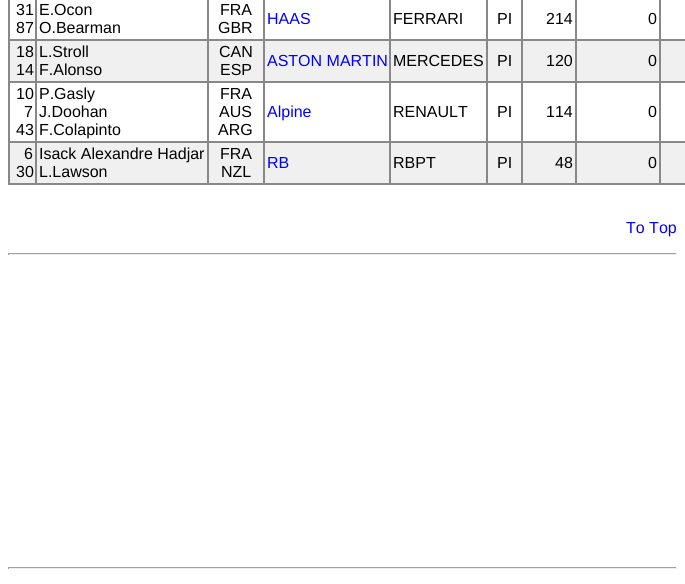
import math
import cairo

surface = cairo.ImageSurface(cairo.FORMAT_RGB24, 685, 584)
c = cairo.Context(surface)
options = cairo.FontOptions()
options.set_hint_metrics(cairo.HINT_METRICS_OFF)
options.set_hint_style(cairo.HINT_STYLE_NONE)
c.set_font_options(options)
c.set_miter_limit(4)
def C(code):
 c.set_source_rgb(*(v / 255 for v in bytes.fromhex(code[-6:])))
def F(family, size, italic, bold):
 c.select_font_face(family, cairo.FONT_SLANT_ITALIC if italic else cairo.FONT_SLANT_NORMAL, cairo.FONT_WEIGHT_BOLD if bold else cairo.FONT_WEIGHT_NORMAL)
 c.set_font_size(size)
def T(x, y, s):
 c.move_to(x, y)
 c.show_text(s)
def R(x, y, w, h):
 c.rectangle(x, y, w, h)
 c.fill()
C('ffffff')
c.paint()
c.rectangle(8.5,-.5,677,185)
C('888888')
c.set_line_width(1)
c.stroke()
c.rectangle(9.5,-.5,26,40)
c.stroke()
F('Liberation Sans',16,0,0)
C('000000')
T(16,15,'31')
T(16,33,'87')
c.rectangle(36.5,-.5,171,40)
C('888888')
c.stroke()
C('000000')
T(39,15,'E.Ocon')
T(39,33,'O.Bearman')
c.rectangle(208.5,-.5,55,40)
C('888888')
c.stroke()
C('000000')
T(220,15,'FRA')
T(218,33,'GBR')
c.rectangle(264.5,-.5,125,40)
C('888888')
c.stroke()
C('0000ff')
T(267,24,'HAAS')
c.rectangle(390.5,-.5,96,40)
C('888888')
c.stroke()
C('000000')
T(393,24,'FERRARI')
c.rectangle(487.5,-.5,34,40)
C('888888')
c.stroke()
C('000000')
T(497,24,'PI')
c.rectangle(522.5,-.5,53,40)
C('888888')
c.stroke()
C('000000')
T(546,24,'214')
c.rectangle(576.5,-.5,83,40)
C('888888')
c.stroke()
C('000000')
T(648,24,'0')
c.rectangle(660.5,-.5,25,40)
C('888888')
c.stroke()
C('f0f0f0')
R(10,41,675,40)
c.rectangle(9.5,40.5,26,41)
C('888888')
c.stroke()
C('000000')
T(16,57,'18')
T(16,75,'14')
c.rectangle(36.5,40.5,171,41)
C('888888')
c.stroke()
C('000000')
T(39,57,'L.Stroll')
T(39,75,'F.Alonso')
c.rectangle(208.5,40.5,55,41)
C('888888')
c.stroke()
C('000000')
T(219,57,'CAN')
T(220,75,'ESP')
c.rectangle(264.5,40.5,125,41)
C('888888')
c.stroke()
C('0000ff')
T(267,66,'ASTON MARTIN')
c.rectangle(390.5,40.5,96,41)
C('888888')
c.stroke()
C('000000')
T(393,66,'MERCEDES')
c.rectangle(487.5,40.5,34,41)
C('888888')
c.stroke()
C('000000')
T(497,66,'PI')
c.rectangle(522.5,40.5,53,41)
C('888888')
c.stroke()
C('000000')
T(546,66,'120')
c.rectangle(576.5,40.5,83,41)
C('888888')
c.stroke()
C('000000')
T(648,66,'0')
c.rectangle(660.5,40.5,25,41)
C('888888')
c.stroke()
c.rectangle(9.5,82.5,26,59)
c.stroke()
C('000000')
T(16,99,'10')
T(24,117,'7')
T(16,135,'43')
c.rectangle(36.5,82.5,171,59)
C('888888')
c.stroke()
C('000000')
T(39,99,'P.Gasly')
T(39,117,'J.Doohan')
T(39,135,'F.Colapinto')
c.rectangle(208.5,82.5,55,59)
C('888888')
c.stroke()
C('000000')
T(220,99,'FRA')
T(219,117,'AUS')
T(218,135,'ARG')
c.rectangle(264.5,82.5,125,59)
C('888888')
c.stroke()
C('0000ff')
T(267,117,'Alpine')
c.rectangle(390.5,82.5,96,59)
C('888888')
c.stroke()
C('000000')
T(393,117,'RENAULT')
c.rectangle(487.5,82.5,34,59)
C('888888')
c.stroke()
C('000000')
T(497,117,'PI')
c.rectangle(522.5,82.5,53,59)
C('888888')
c.stroke()
C('000000')
T(546,117,'114')
c.rectangle(576.5,82.5,83,59)
C('888888')
c.stroke()
C('000000')
T(648,117,'0')
c.rectangle(660.5,82.5,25,59)
C('888888')
c.stroke()
C('f0f0f0')
R(10,143,675,40)
c.rectangle(9.5,142.5,26,41)
C('888888')
c.stroke()
C('000000')
T(24,159,'6')
T(16,177,'30')
c.rectangle(36.5,142.5,171,41)
C('888888')
c.stroke()
C('000000')
T(39,159,'Isack Alexandre Hadjar')
T(39,177,'L.Lawson')
c.rectangle(208.5,142.5,55,41)
C('888888')
c.stroke()
C('000000')
T(220,159,'FRA')
T(221,177,'NZL')
c.rectangle(264.5,142.5,125,41)
C('888888')
c.stroke()
C('0000ff')
T(267,168,'RB')
c.rectangle(390.5,142.5,96,41)
C('888888')
c.stroke()
C('000000')
T(393,168,'RBPT')
c.rectangle(487.5,142.5,34,41)
C('888888')
c.stroke()
C('000000')
T(497,168,'PI')
c.rectangle(522.5,142.5,53,41)
C('888888')
c.stroke()
C('000000')
T(555,168,'48')
c.rectangle(576.5,142.5,83,41)
C('888888')
c.stroke()
C('000000')
T(648,168,'0')
c.rectangle(660.5,142.5,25,41)
C('888888')
c.stroke()
C('0000ff')
T(626,233,'To Top')
C('9f9f9f')
R(8,253,669,1)
C('eeeeee')
R(676,253,1,2)
R(8,254,669,1)
C('9f9f9f')
R(8,253,1,2)
R(8,567,669,1)
C('eeeeee')
R(676,567,1,2)
R(8,568,669,1)
C('9f9f9f')
R(8,567,1,2)
surface.write_to_png('o.png')
